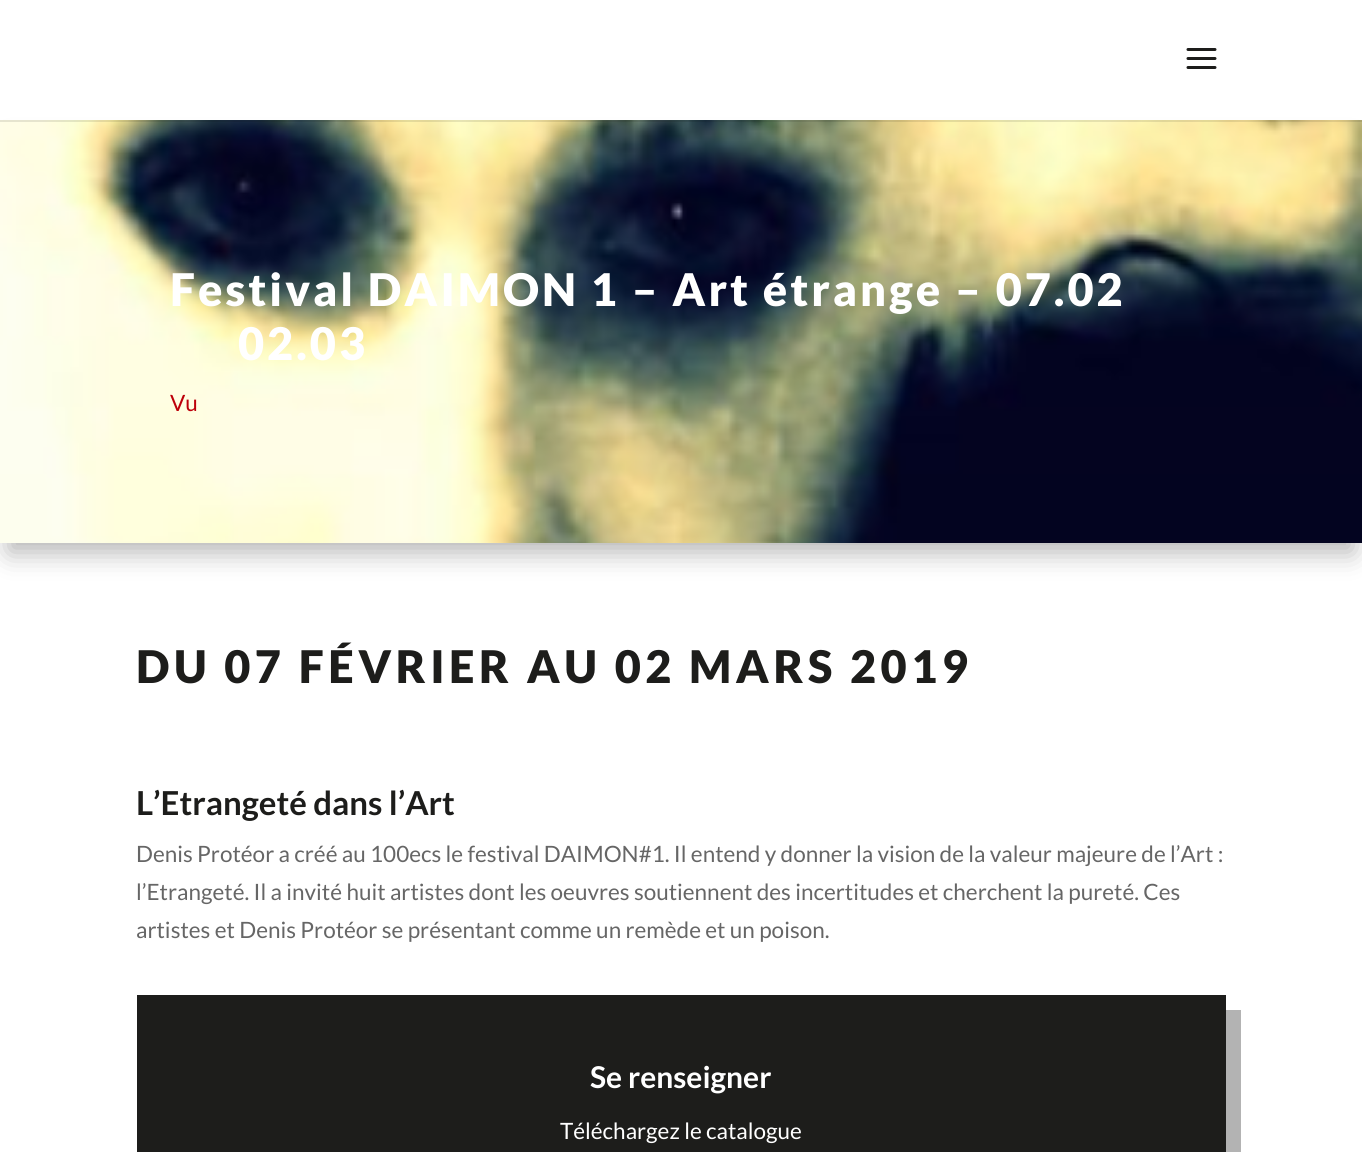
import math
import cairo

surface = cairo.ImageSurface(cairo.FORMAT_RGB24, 1362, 1152)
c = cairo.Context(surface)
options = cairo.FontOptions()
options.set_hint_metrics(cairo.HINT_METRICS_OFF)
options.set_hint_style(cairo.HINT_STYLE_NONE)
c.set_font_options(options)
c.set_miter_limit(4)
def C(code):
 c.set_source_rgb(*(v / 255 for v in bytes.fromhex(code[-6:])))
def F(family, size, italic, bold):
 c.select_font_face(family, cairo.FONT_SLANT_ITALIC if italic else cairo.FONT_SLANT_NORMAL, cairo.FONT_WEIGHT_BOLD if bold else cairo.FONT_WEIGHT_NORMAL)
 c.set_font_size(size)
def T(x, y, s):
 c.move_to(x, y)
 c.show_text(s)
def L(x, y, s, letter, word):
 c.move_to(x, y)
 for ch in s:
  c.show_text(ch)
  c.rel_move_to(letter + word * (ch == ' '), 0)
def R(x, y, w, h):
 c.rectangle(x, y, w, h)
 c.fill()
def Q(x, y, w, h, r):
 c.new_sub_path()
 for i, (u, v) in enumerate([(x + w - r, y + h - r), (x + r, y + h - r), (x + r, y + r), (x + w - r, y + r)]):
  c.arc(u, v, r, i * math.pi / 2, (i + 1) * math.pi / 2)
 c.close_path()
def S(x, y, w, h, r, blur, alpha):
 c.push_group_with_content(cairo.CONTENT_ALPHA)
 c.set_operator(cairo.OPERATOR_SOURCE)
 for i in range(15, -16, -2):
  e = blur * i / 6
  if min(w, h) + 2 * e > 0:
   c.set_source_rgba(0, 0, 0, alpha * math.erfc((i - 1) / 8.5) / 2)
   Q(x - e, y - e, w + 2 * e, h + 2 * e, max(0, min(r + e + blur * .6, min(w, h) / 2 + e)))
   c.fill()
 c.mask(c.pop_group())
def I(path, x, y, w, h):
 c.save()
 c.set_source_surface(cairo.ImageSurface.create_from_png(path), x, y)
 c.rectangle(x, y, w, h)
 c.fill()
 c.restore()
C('ffffff')
c.paint()
C('000000')
S(9,146,1344,406,0,13.5,.3)
I('2.png',0,120,1362,423)
c.set_source_rgba(0,0,0,0.1)
R(0,120,1362,2)
I('1.png',1186,48,31,21)
F('Lato Black',45,0,0)
C('ffffff')
L(170,306,'Festival DAIMON 1 – Art étrange – 07.02',3,0)
L(238,360,'02.03',3,0)
F('Lato',22.5,0,0)
C('bd000a')
T(170,411,'Vu')
F('Lato Black',45,0,0)
C('1d1d1b')
L(136,683,'DU 07 FÉVRIER AU 02 MARS 2019',4.5,0)
F('Lato',33,0,1)
T(136,815,'L’Etrangeté dans l’Art')
F('Lato',22.5,0,0)
C('666666')
T(136,862,'Denis Protéor a créé au 100ecs le festival DAIMON#1. Il entend y donner la vision de la valeur majeure de l’Art :')
T(136,900,'l’Etrangeté. Il a invité huit artistes dont les oeuvres soutiennent des incertitudes et cherchent la pureté. Ces')
T(136,938,'artistes et Denis Protéor se présentant comme un remède et un poison.')
C('b3b3b3')
c.new_path()
c.move_to(152,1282)
c.line_to(152,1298)
c.line_to(1241,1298)
c.line_to(1241,1010)
c.line_to(1226,1010)
c.line_to(1226,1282)
c.close_path()
c.fill()
C('1d1d1b')
R(137,995,1089,157)
F('Lato',30,0,1)
C('ffffff')
T(590,1088,'Se renseigner')
F('Lato',22.5,0,0)
T(560,1139,'Téléchargez le catalogue')
surface.write_to_png('o.png')
